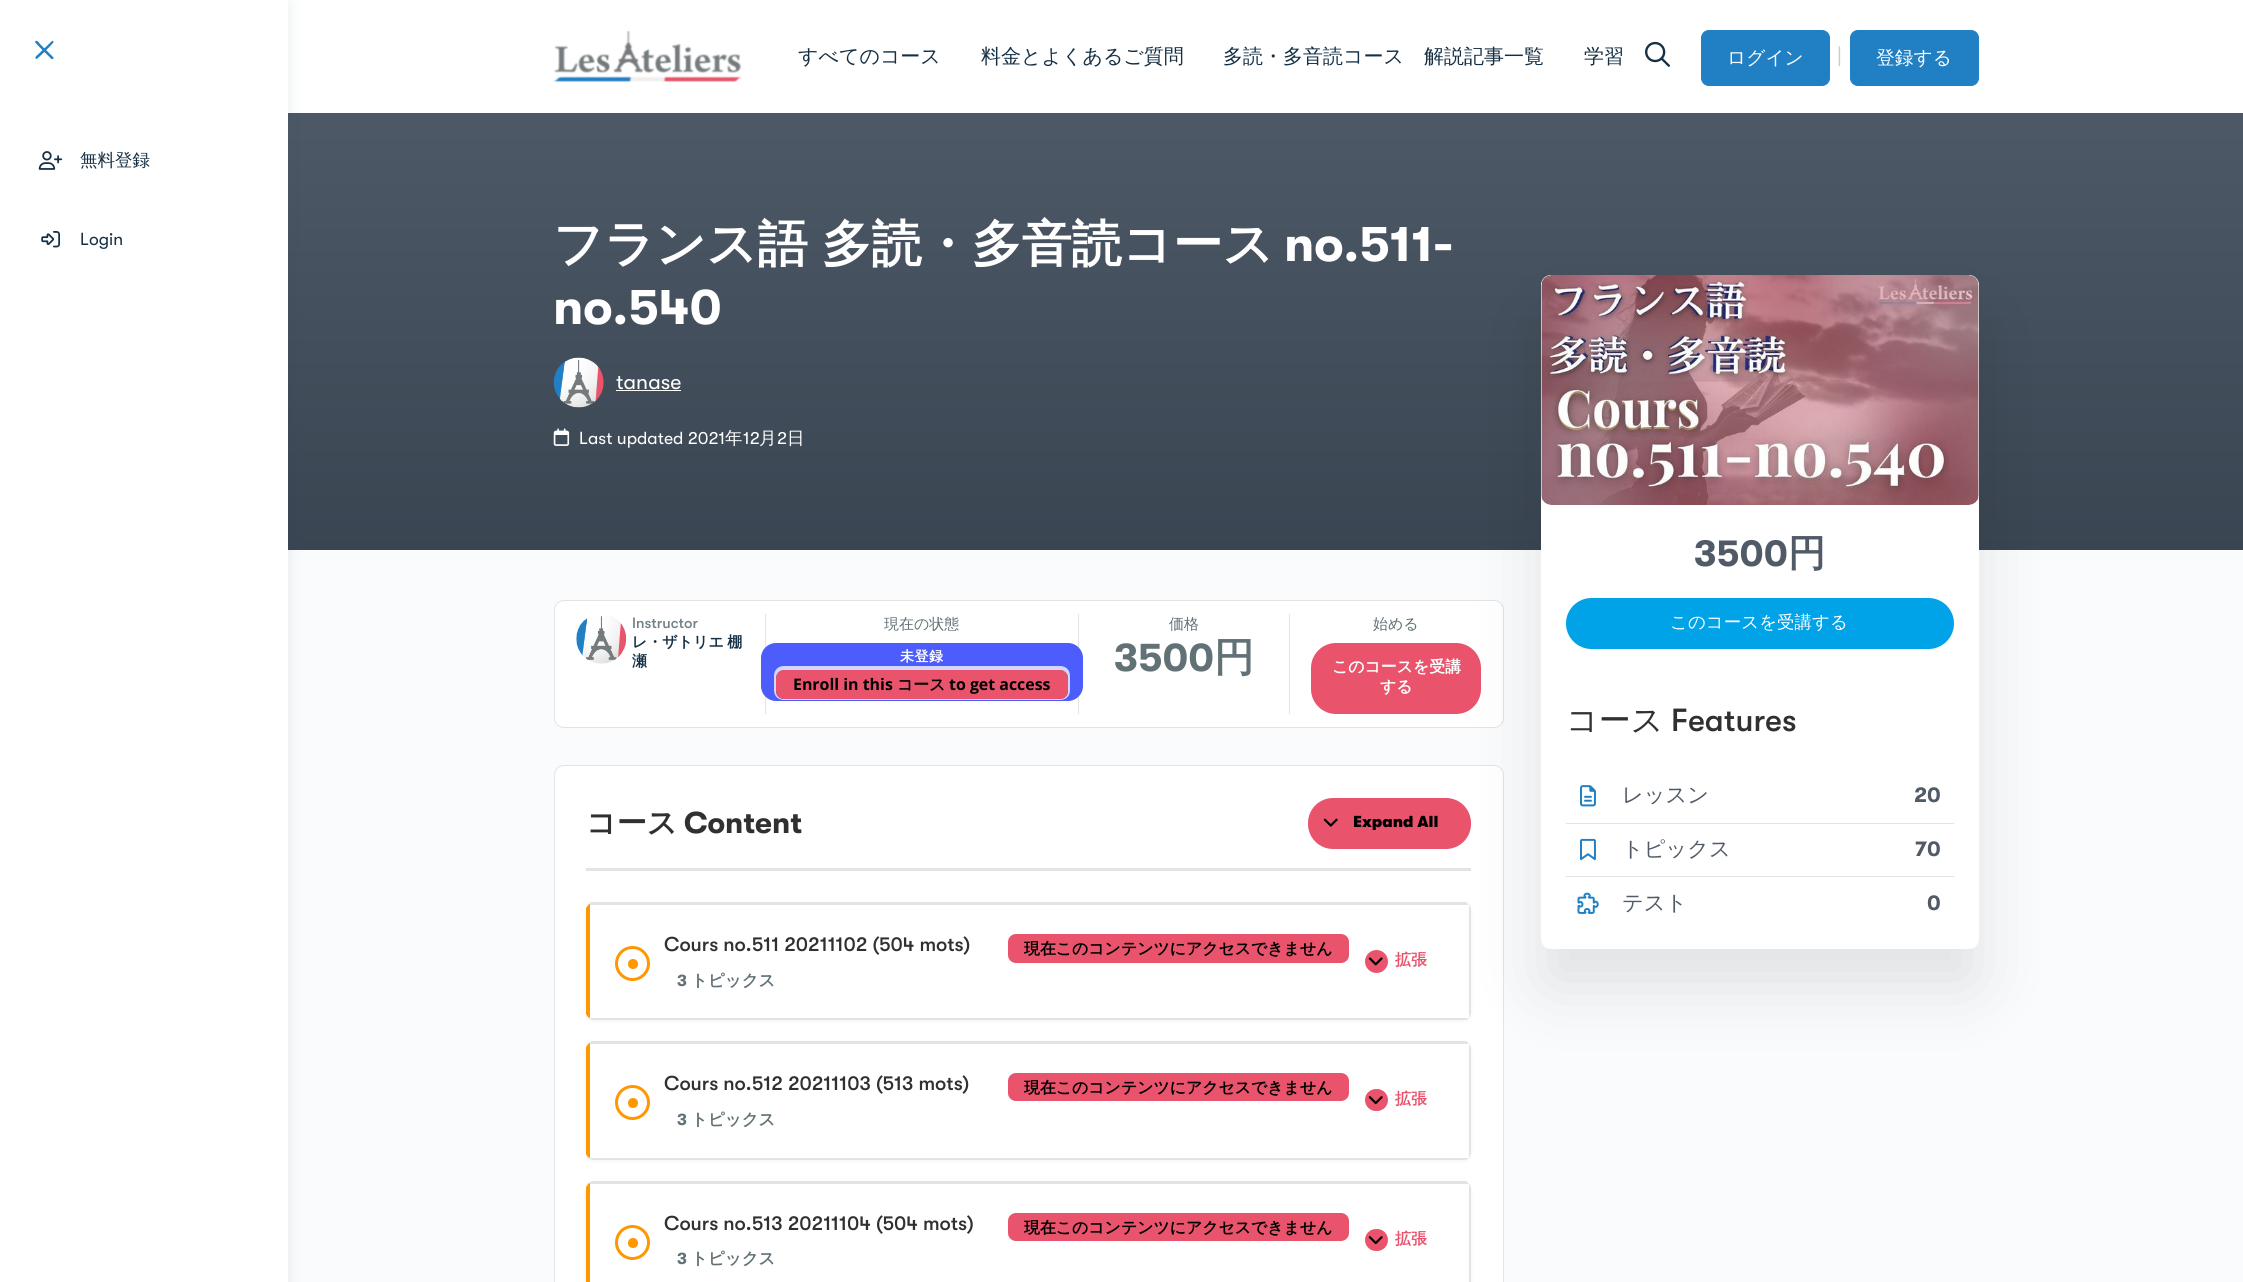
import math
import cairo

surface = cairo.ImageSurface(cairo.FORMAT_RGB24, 2243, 1282)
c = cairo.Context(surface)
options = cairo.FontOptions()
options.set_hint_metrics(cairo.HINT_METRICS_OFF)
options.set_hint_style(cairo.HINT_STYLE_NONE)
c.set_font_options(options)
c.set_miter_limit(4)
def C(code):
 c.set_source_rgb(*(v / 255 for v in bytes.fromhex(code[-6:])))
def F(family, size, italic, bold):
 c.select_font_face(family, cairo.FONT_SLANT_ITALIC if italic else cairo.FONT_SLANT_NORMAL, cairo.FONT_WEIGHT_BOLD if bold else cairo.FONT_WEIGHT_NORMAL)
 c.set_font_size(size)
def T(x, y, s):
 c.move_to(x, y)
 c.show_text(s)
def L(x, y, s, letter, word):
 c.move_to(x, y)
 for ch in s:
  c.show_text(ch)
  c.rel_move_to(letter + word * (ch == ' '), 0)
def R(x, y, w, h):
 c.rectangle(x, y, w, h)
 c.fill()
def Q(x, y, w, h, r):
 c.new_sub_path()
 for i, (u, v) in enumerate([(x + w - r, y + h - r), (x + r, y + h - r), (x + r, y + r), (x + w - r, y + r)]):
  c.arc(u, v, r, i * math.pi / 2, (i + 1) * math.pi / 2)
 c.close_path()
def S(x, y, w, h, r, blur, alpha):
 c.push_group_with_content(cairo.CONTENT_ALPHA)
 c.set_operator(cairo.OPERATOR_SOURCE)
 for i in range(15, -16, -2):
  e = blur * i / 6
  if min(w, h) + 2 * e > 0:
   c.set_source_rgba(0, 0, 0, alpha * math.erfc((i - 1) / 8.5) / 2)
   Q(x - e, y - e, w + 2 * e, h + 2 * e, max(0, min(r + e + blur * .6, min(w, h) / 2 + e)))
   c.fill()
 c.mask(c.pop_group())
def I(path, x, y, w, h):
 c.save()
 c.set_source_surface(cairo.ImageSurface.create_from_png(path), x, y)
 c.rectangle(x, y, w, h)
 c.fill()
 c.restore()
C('fafbfd')
c.paint()
gradient = cairo.LinearGradient(1266,112,1266,550)
gradient.add_color_stop_rgba(.04,0.298,0.345,0.396,1)
gradient.add_color_stop_rgba(1,0.227,0.271,0.322,1)
c.set_source(gradient)
R(288,113,1955,437)
c.set_source_rgba(0.255,0.278,0.424,0.1)
c.new_path()
c.move_to(288,112)
c.line_to(288,114)
c.line_to(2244,114)
c.line_to(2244,1)
c.line_to(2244,112)
c.close_path()
c.fill()
C('ffffff')
R(288,0,1955,113)
C('122b46')
S(0,4,288,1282,0,8,.1)
C('ffffff')
R(0,0,288,1282)
C('217fc4')
c.new_path()
c.move_to(53,43)
c.curve_to(51.5,45,37.5,59,36.5,59)
c.line_to(35.5,58.5)
c.curve_to(34.5,57,38,54.5,38,54.5)
c.line_to(52,41)
c.curve_to(52.5,40.5,53.5,41,53.5,42)
c.close_path()
c.fill()
c.new_path()
c.move_to(51.5,59)
c.curve_to(49.5,57,35,43,35,42)
c.line_to(35.5,41)
c.curve_to(37.5,40,39.5,43.5,40,44)
c.line_to(53.5,57.5)
c.curve_to(54,58.5,53,59,52.5,59)
c.close_path()
c.fill()
I('1.png',38,151,25,19)
F('WenQuanYi Zen Hei Medium',17.5,0,0)
C('153045')
T(80,166,'無料登録')
I('2.png',41,231,19,17)
F('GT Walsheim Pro',17.5,0,0)
T(80,245,'Login')
I('3.png',553,30,189,52)
F('WenQuanYi Zen Hei Medium',20,0,0)
T(798,63,'すべてのコース')
T(981,63,'料金とよくあるご質問')
T(1223,63,'多読・多音読コース　解説記事一覧')
T(1584,63,'学習')
I('4.png',1645,41,25,26)
C('217fc4')
Q(1701.5,30.5,128,55,7.5)
c.fill_preserve()
c.set_line_width(1)
c.stroke()
F('WenQuanYi Zen Hei Medium',18.75,0,0)
C('ffffff')
T(1727,64,'ログイン')
F('GT Walsheim Pro',21.25,0,0)
C('cccccc')
T(1837,62,'|')
C('217fc4')
Q(1850.5,30.5,128,55,7.5)
c.fill_preserve()
c.stroke()
F('WenQuanYi Zen Hei Medium',18.75,0,0)
C('ffffff')
T(1876,64,'登録する')
F('WenQuanYi Zen Hei',50,0,1)
L(553,261,'フランス語 多読・多音読コース',0,-1)
F('GT Walsheim Pro',50,0,1)
T(1284,261,'no.511-')
T(553,324,'no.540')
I('5.png',553,357,51,51)
F('GT Walsheim Pro',21.25,0,0)
T(616,389,'tanase')
R(616,390,65,1)
I('6.png',553,428,17,18)
F('GT Walsheim Pro',17.5,0,0)
T(579,444,'Last updated 2021')
F('WenQuanYi Zen Hei Medium',17.5,0,0)
T(725,444,'年')
F('GT Walsheim Pro',17.5,0,0)
T(743,444,'12')
F('WenQuanYi Zen Hei Medium',17.5,0,0)
T(759,444,'月')
F('GT Walsheim Pro',17.5,0,0)
T(777,444,'2')
F('WenQuanYi Zen Hei Medium',17.5,0,0)
T(787,444,'日')
Q(554.5,600.5,949,127,9.5)
c.fill_preserve()
C('e3e3e3')
c.stroke()
R(765,614,1,100)
I('7.png',576,616,51,48)
F('GT Walsheim Pro Medium',15,0,0)
C('728188')
T(632,628,'Instructor')
F('WenQuanYi Zen Hei',15,0,1)
C('153045')
L(632,647,'レ・ザトリエ 棚',0,-1)
T(632,666,'瀬')
C('e3e3e3')
R(1078,614,1,100)
F('WenQuanYi Zen Hei Medium',15,0,0)
C('617175')
T(884,629,'現在の状態')
C('4d5dfb')
Q(761,643,322,58,15)
c.fill()
F('WenQuanYi Zen Hei',14,0,1)
C('ffffff')
L(900,661,'未登録',.5,0)
C('d3d7fe')
c.set_fill_rule(cairo.FILL_RULE_EVEN_ODD)
c.new_path()
c.move_to(784,666)
c.curve_to(778,666,774,670,774,676)
c.line_to(774,690)
c.curve_to(774,696,778,700,784,700)
c.line_to(1060,700)
c.curve_to(1066,700,1070,696,1070,690)
c.line_to(1070,676)
c.curve_to(1070,670,1066,666,1060,666)
c.close_path()
c.move_to(784,670)
c.curve_to(780,670,776,674,776,678)
c.line_to(776,691)
c.curve_to(776,696,780,699,784,699)
c.line_to(1060,699)
c.curve_to(1064,699,1068,696,1068,691)
c.line_to(1068,678)
c.curve_to(1068,674,1064,670,1060,670)
c.close_path()
c.fill()
C('e9536c')
Q(776,670,292,29,8)
c.fill()
F('Open Sans',15.9,0,1)
C('000000')
T(793,690,'Enroll in this')
F('WenQuanYi Zen Hei',15.9,0,1)
T(897,690,'コース')
F('Open Sans',15.9,0,1)
T(949,690,'to get access')
C('e3e3e3')
R(1289,614,1,100)
F('WenQuanYi Zen Hei Medium',15,0,0)
C('617175')
T(1169,629,'価格')
F('GT Walsheim Pro',40,0,1)
T(1114,671,'3500')
F('WenQuanYi Zen Hei',40,0,1)
T(1214,671,'円')
F('WenQuanYi Zen Hei Medium',15,0,0)
T(1373,629,'始める')
C('e9536c')
Q(1311,643,170,71,25)
c.fill()
F('WenQuanYi Zen Hei',15.9,0,1)
C('ffffff')
T(1332,672,'このコースを受講')
T(1380,692,'する')
Q(554.5,765.5,949,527,9.5)
c.fill_preserve()
C('e3e3e3')
c.stroke()
R(586,868,885,3)
F('WenQuanYi Zen Hei',30,0,1)
C('303030')
T(586,833,'コース')
F('GT Walsheim Pro',30,0,1)
T(684,833,'Content')
C('e9536c')
Q(1308,798,163,51,25)
c.fill()
I('8.png',1323,818,15,9)
F('GT Walsheim Pro Black',15.9,0,0)
C('000000')
T(1353,827,'Expand All')
C('000000')
S(586,904,885,117,8,2,.06)
C('e3e3e3')
c.set_fill_rule(cairo.FILL_RULE_WINDING)
c.new_path()
c.move_to(594,905)
c.line_to(592,906)
c.line_to(589,904)
c.line_to(591,902)
c.line_to(1466,902)
c.line_to(1469,905)
c.line_to(1467,906)
c.curve_to(1467,905,1465,905,1464,905)
c.close_path()
c.fill()
c.new_path()
c.move_to(1469,905)
c.curve_to(1470,906,1471,908,1471,910)
c.line_to(1471,1012)
c.curve_to(1471,1014,1470,1016,1469,1018)
c.line_to(1468,1016)
c.line_to(1469,1013)
c.line_to(1469,909)
c.line_to(1467,906)
c.close_path()
c.fill()
c.new_path()
c.move_to(594,1020)
c.line_to(1464,1020)
c.curve_to(1466,1020,1468,1019,1469,1018)
c.line_to(1468,1016)
c.curve_to(1467,1017,1465,1018,1464,1018)
c.line_to(594,1018)
c.line_to(592,1016)
c.line_to(589,1018)
c.curve_to(590,1019,592,1020,594,1020)
c.close_path()
c.fill()
C('ff9800')
c.new_path()
c.move_to(586,908)
c.line_to(589,904)
c.line_to(592,906)
c.curve_to(591,907,590,908,590,910)
c.line_to(590,1012)
c.curve_to(590,1014,591,1015,592,1016)
c.line_to(589,1018)
c.curve_to(588,1017,587,1016,586,1014)
c.close_path()
c.fill()
C('ffffff')
R(590,905,879,113)
c.arc(632.5,963.5,16,0,2 * math.pi)
C('ff9800')
c.set_line_width(3)
c.stroke()
c.arc(633,964,5,0,2 * math.pi)
c.fill()
F('GT Walsheim Pro Medium',20,0,0)
C('303030')
T(664,951,'Cours no.511 20211102 (504 mots)')
F('GT Walsheim Pro',16.5,0,1)
C('617175')
T(677,986,'3')
F('WenQuanYi Zen Hei',16.5,0,1)
T(691,986,'トピックス')
C('e9536c')
Q(1008,934,341,29,8)
c.fill()
F('WenQuanYi Zen Hei',15.9,0,1)
C('000000')
T(1024,954,'現在このコンテンツにアクセスできません')
C('e9536c')
c.new_path()
c.arc(1376.5,961.5,11.5,0,2 * math.pi)
c.fill()
I('9.png',1368,957,15,9)
T(1395,965,'拡張')
C('000000')
S(586,1043,885,118,8,2,.06)
C('e3e3e3')
c.new_path()
c.move_to(594,1044)
c.line_to(592,1045)
c.line_to(589,1043)
c.line_to(592,1041)
c.line_to(1466,1041)
c.line_to(1469,1044)
c.line_to(1467,1045)
c.line_to(1464,1044)
c.close_path()
c.fill()
c.new_path()
c.move_to(1469,1044)
c.curve_to(1470,1045,1471,1047,1471,1049)
c.line_to(1471,1152)
c.curve_to(1471,1154,1470,1156,1469,1158)
c.line_to(1468,1156)
c.curve_to(1468,1155,1469,1154,1469,1152)
c.line_to(1469,1049)
c.curve_to(1469,1047,1468,1046,1467,1045)
c.close_path()
c.fill()
c.new_path()
c.move_to(594,1160)
c.line_to(1464,1160)
c.curve_to(1466,1160,1468,1159,1469,1158)
c.line_to(1468,1156)
c.curve_to(1467,1157,1465,1158,1464,1158)
c.line_to(594,1158)
c.line_to(592,1156)
c.line_to(589,1158)
c.curve_to(590,1159,592,1160,594,1160)
c.close_path()
c.fill()
C('ff9800')
c.new_path()
c.move_to(586,1047)
c.curve_to(587,1046,588,1044,589,1043)
c.line_to(592,1045)
c.curve_to(591,1046,590,1047,590,1049)
c.line_to(590,1152)
c.curve_to(590,1154,591,1155,592,1156)
c.line_to(589,1158)
c.curve_to(588,1157,587,1156,586,1154)
c.close_path()
c.fill()
C('ffffff')
R(590,1044,879,114)
c.arc(632.5,1102.5,16,0,2 * math.pi)
C('ff9800')
c.stroke()
c.arc(633,1103,5,0,2 * math.pi)
c.fill()
F('GT Walsheim Pro Medium',20,0,0)
C('303030')
T(664,1090,'Cours no.512 20211103 (513 mots)')
F('GT Walsheim Pro',16.5,0,1)
C('617175')
T(677,1125,'3')
F('WenQuanYi Zen Hei',16.5,0,1)
T(691,1125,'トピックス')
C('e9536c')
Q(1008,1073,341,28,8)
c.fill()
F('WenQuanYi Zen Hei',15.9,0,1)
C('000000')
T(1024,1093,'現在このコンテンツにアクセスできません')
C('e9536c')
Q(1365,1089,23,22,11)
c.fill()
I('10.png',1368,1096,15,9)
T(1395,1104,'拡張')
C('000000')
S(586,1183,885,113,8,2,.06)
C('e3e3e3')
c.new_path()
c.move_to(594,1184)
c.line_to(592,1185)
c.line_to(589,1183)
c.line_to(592,1181)
c.line_to(1466,1181)
c.line_to(1469,1184)
c.line_to(1467,1185)
c.line_to(1464,1184)
c.close_path()
c.fill()
c.new_path()
c.move_to(1469,1184)
c.curve_to(1470,1185,1471,1187,1471,1189)
c.line_to(1471,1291)
c.curve_to(1471,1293,1470,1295,1469,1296)
c.line_to(1467,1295)
c.curve_to(1468,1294,1469,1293,1469,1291)
c.line_to(1469,1189)
c.curve_to(1469,1187,1468,1186,1467,1185)
c.close_path()
c.fill()
C('ff9800')
c.new_path()
c.move_to(586,1187)
c.curve_to(587,1186,588,1184,589,1183)
c.line_to(592,1185)
c.curve_to(591,1186,590,1187,590,1189)
c.line_to(590,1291)
c.curve_to(590,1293,591,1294,592,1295)
c.line_to(589,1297)
c.curve_to(588,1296,587,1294,586,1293)
c.close_path()
c.fill()
C('ffffff')
R(590,1184,879,98)
c.arc(632.5,1242.5,16,0,2 * math.pi)
C('ff9800')
c.stroke()
c.arc(633,1243,5,0,2 * math.pi)
c.fill()
F('GT Walsheim Pro Medium',20,0,0)
C('303030')
T(664,1230,'Cours no.513 20211104 (504 mots)')
F('GT Walsheim Pro',16.5,0,1)
C('617175')
T(677,1264,'3')
F('WenQuanYi Zen Hei',16.5,0,1)
T(691,1264,'トピックス')
C('e9536c')
Q(1008,1213,341,28,8)
c.fill()
F('WenQuanYi Zen Hei',15.9,0,1)
C('000000')
T(1024,1233,'現在このコンテンツにアクセスできません')
C('e9536c')
Q(1365,1229,23,22,11)
c.fill()
I('10.png',1368,1236,15,9)
T(1395,1244,'拡張')
C('000000')
S(1541,315,438,674,10,34,.1)
C('ffffff')
Q(1541,275,438,674,10)
c.fill()
I('11.png',1541,275,438,230)
F('GT Walsheim Pro',37.5,0,1)
C('515b67')
T(1694,566,'3500')
F('WenQuanYi Zen Hei',37.5,0,1)
T(1788,566,'円')
C('00a2e8')
Q(1566,598,388,51,25.5)
c.fill()
F('WenQuanYi Zen Hei Medium',17.5,0,0)
C('ffffff')
T(1670,628,'このコースを受講する')
F('WenQuanYi Zen Hei Medium',32,0,0)
C('303030')
T(1566,731,'コース')
F('GT Walsheim Pro Medium',32,0,0)
T(1671,731,'Features')
I('12.png',1580,785,16,22)
F('WenQuanYi Zen Hei Medium',21.25,0,0)
C('515b67')
T(1622,802,'レッスン')
F('GT Walsheim Pro',21.25,0,1)
T(1914,802,'20')
C('e3e3e3')
R(1566,823,388,1)
I('13.png',1580,838,16,23)
F('WenQuanYi Zen Hei Medium',21.25,0,0)
C('515b67')
T(1622,856,'トピックス')
F('GT Walsheim Pro',21.25,0,1)
T(1915,856,'70')
C('e3e3e3')
R(1566,876,388,1)
I('14.png',1577,892,22,22)
F('WenQuanYi Zen Hei Medium',21.25,0,0)
C('515b67')
T(1622,910,'テスト')
F('GT Walsheim Pro',21.25,0,1)
T(1927,910,'0')
surface.write_to_png('o.png')
